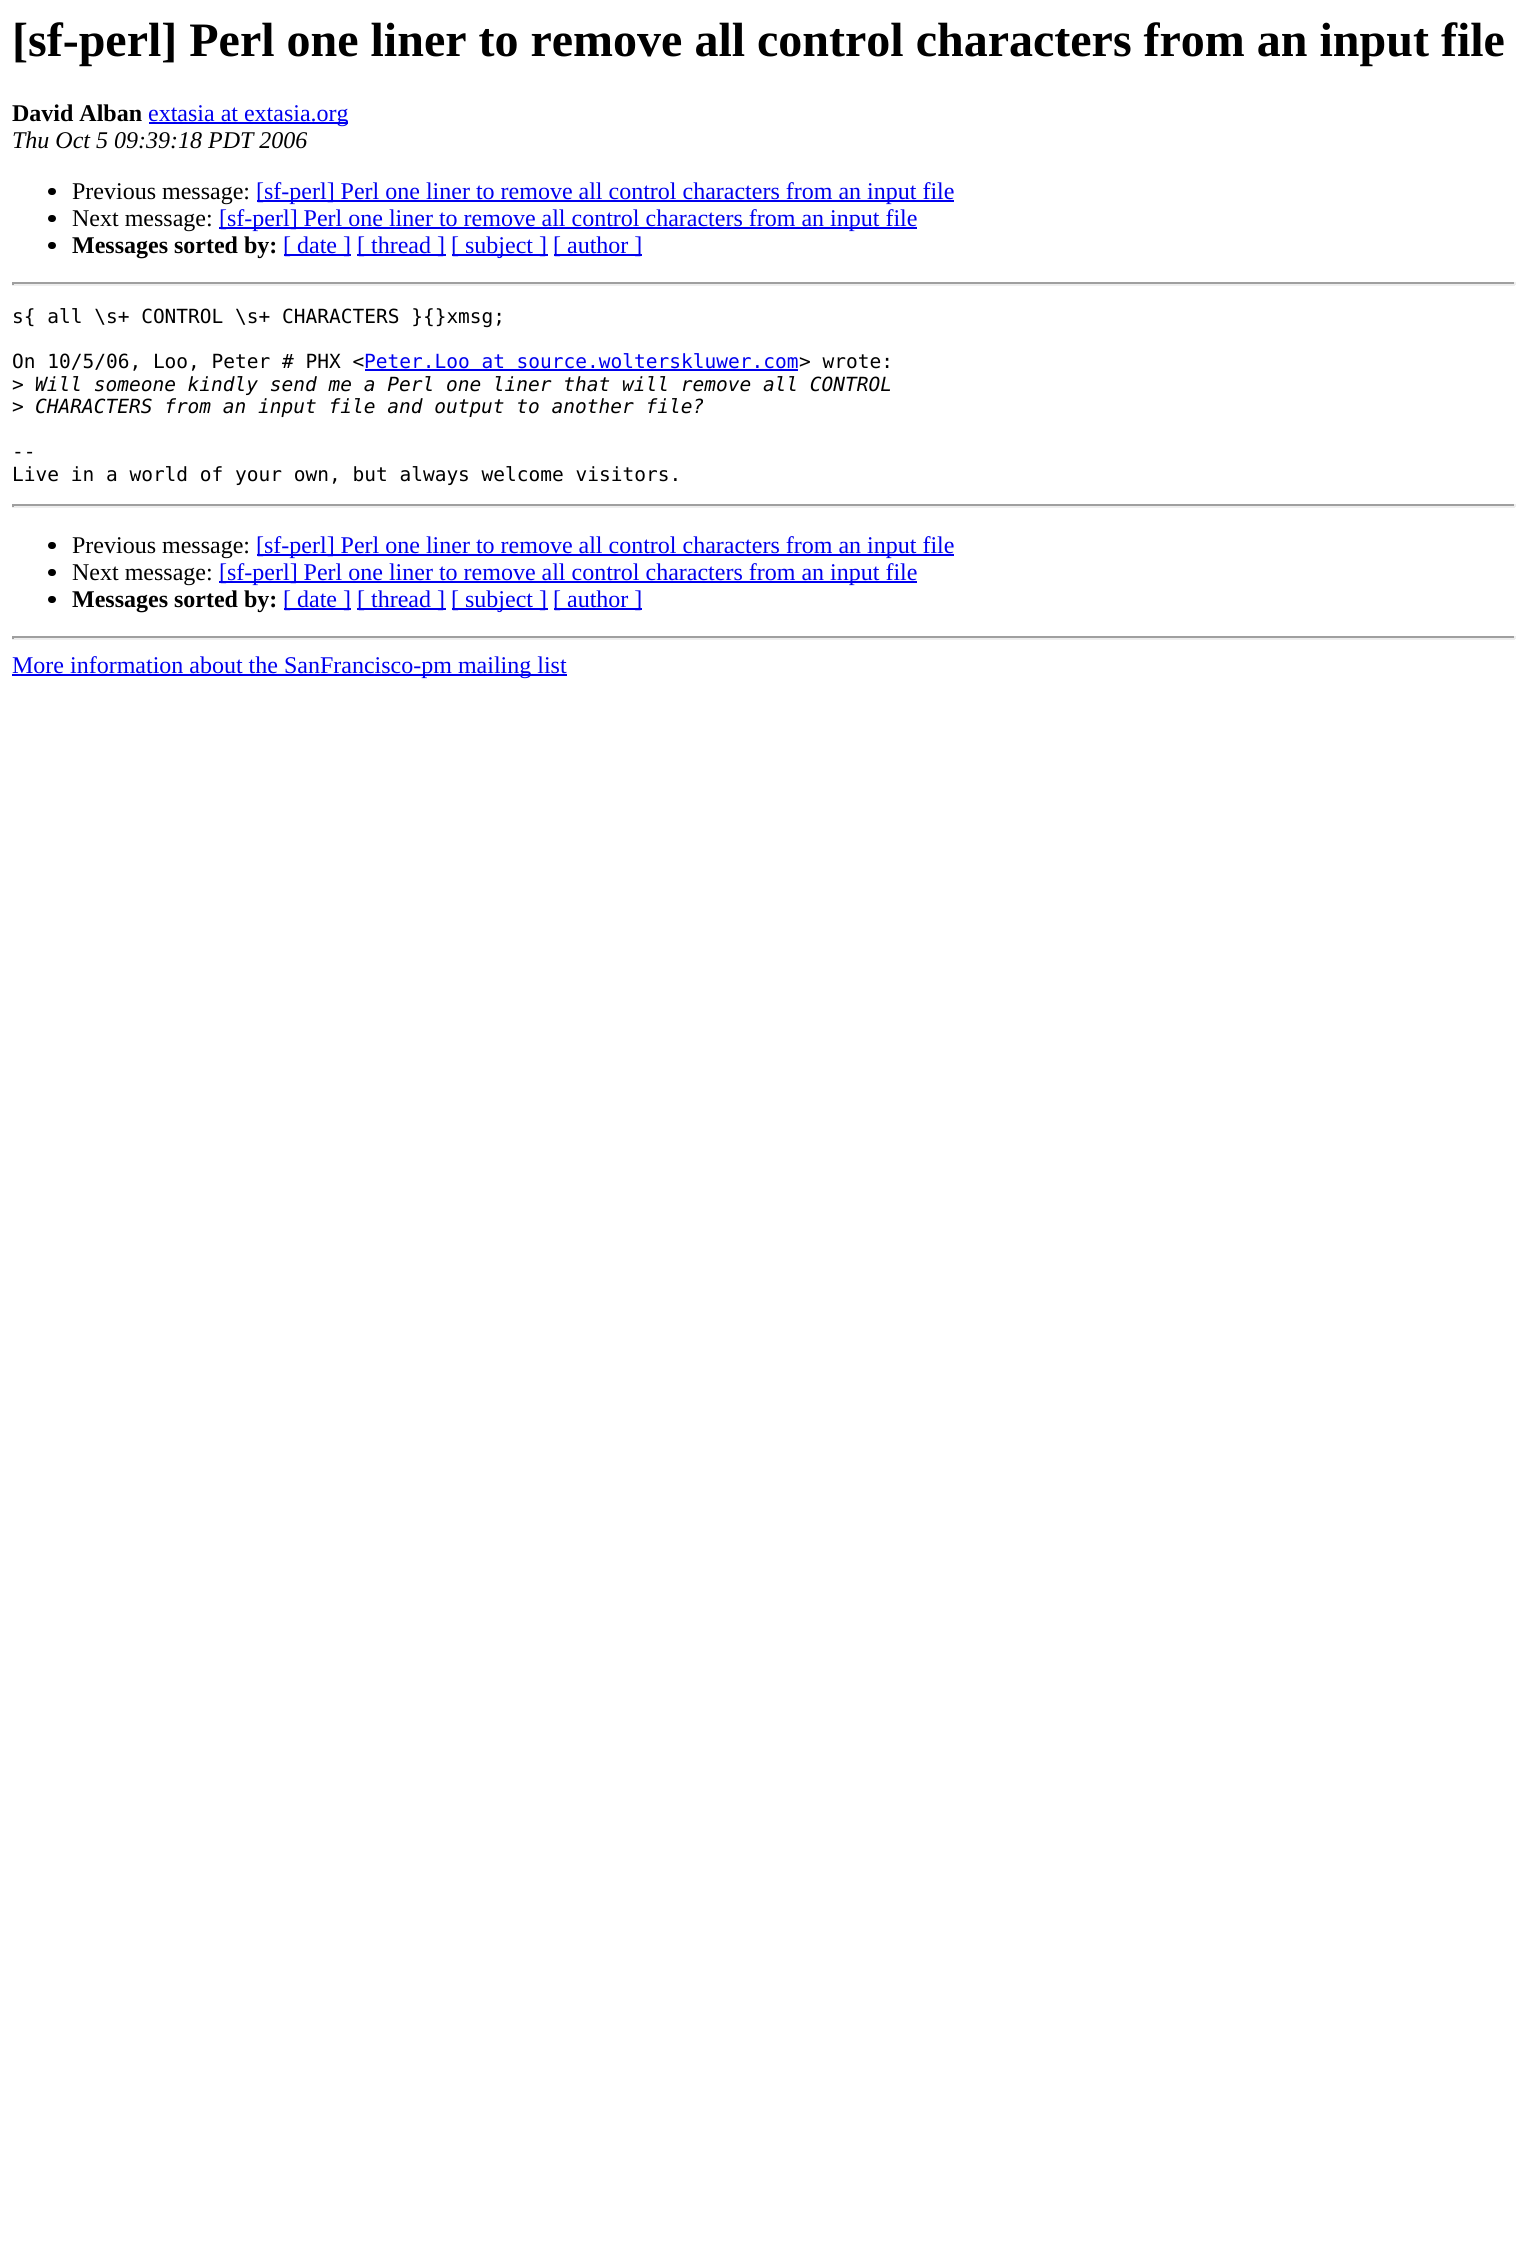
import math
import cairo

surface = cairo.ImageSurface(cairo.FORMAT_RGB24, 1526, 2251)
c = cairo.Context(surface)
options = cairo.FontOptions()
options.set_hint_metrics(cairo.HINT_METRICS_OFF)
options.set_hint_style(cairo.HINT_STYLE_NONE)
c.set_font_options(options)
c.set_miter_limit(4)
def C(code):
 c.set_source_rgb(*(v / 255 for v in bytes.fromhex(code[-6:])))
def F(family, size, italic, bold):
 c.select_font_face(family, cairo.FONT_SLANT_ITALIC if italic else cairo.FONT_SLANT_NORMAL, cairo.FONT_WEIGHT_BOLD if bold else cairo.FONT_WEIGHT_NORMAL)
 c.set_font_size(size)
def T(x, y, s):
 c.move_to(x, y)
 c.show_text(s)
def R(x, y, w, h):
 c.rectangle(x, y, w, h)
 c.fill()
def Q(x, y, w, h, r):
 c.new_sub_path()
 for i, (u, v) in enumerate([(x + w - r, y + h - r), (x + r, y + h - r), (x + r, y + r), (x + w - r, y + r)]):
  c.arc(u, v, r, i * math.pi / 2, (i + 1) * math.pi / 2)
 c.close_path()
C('ffffff')
c.paint()
F('Liberation Serif',48,0,1)
C('000000')
T(12,56,'[sf-perl] Perl one liner to remove all control characters from an input file')
F('Liberation Serif',24,0,1)
T(12,121,'David Alban')
C('0000ee')
R(149,122,199,2)
F('Liberation Serif',24,0,0)
T(148,121,'extasia at extasia.org')
F('Liberation Serif',24,1,0)
C('000000')
T(12,148,'Thu Oct 5 09:39:18 PDT 2006')
Q(48,188,8,7,3.5)
c.fill()
F('Liberation Serif',24,0,0)
T(72,199,'Previous message:')
C('0000ee')
R(257,200,697,2)
T(256,199,'[sf-perl] Perl one liner to remove all control characters from an input file')
C('000000')
Q(48,215,8,7,3.5)
c.fill()
T(72,226,'Next message:')
C('0000ee')
R(219,227,698,2)
T(219,226,'[sf-perl] Perl one liner to remove all control characters from an input file')
C('000000')
Q(48,242,8,7,3.5)
c.fill()
F('Liberation Serif',24,0,1)
T(72,253,'Messages sorted by:')
C('0000ee')
R(284,254,67,2)
F('Liberation Serif',24,0,0)
T(283,253,'[ date ]')
R(357,254,89,2)
T(357,253,'[ thread ]')
R(452,254,96,2)
T(451,253,'[ subject ]')
R(554,254,88,2)
T(553,253,'[ author ]')
C('9f9f9f')
R(12,282,1503,2)
C('eeeeee')
R(1514,282,2,3)
R(12,284,1503,2)
C('9f9f9f')
R(12,282,2,3)
F('DejaVu Sans Mono',19.5,0,0)
C('000000')
T(12,323,'s{ all \\s+ CONTROL \\s+ CHARACTERS }{}xmsg;')
T(12,368,'On 10/5/06, Loo, Peter # PHX <')
C('0000ee')
T(364,368,'Peter.Loo at source.wolterskluwer.com')
R(365,369,433,2)
C('000000')
T(799,368,'> wrote:')
T(12,391,'>')
F('DejaVu Sans Mono',19.5,1,0)
T(35,391,'Will someone kindly send me a Perl one liner that will remove all CONTROL')
F('DejaVu Sans Mono',19.5,0,0)
T(12,413,'>')
F('DejaVu Sans Mono',19.5,1,0)
T(35,413,'CHARACTERS from an input file and output to another file?')
F('DejaVu Sans Mono',19.5,0,0)
T(12,458,'--')
T(12,481,'Live in a world of your own, but always welcome visitors.')
C('9f9f9f')
R(12,504,1503,2)
C('eeeeee')
R(1514,504,2,3)
R(12,506,1503,2)
C('9f9f9f')
R(12,504,2,3)
C('000000')
Q(48,542,8,7,3.5)
c.fill()
F('Liberation Serif',24,0,0)
T(72,553,'Previous message:')
C('0000ee')
R(257,554,697,2)
T(256,553,'[sf-perl] Perl one liner to remove all control characters from an input file')
C('000000')
Q(48,569,8,7,3.5)
c.fill()
T(72,580,'Next message:')
C('0000ee')
R(219,581,698,2)
T(219,580,'[sf-perl] Perl one liner to remove all control characters from an input file')
C('000000')
Q(48,596,8,7,3.5)
c.fill()
F('Liberation Serif',24,0,1)
T(72,607,'Messages sorted by:')
C('0000ee')
R(284,608,67,2)
F('Liberation Serif',24,0,0)
T(283,607,'[ date ]')
R(357,608,89,2)
T(357,607,'[ thread ]')
R(452,608,96,2)
T(451,607,'[ subject ]')
R(554,608,88,2)
T(553,607,'[ author ]')
C('9f9f9f')
R(12,636,1503,2)
C('eeeeee')
R(1514,636,2,3)
R(12,638,1503,2)
C('9f9f9f')
R(12,636,2,3)
C('0000ee')
R(12,674,555,2)
T(12,673,'More information about the SanFrancisco-pm mailing list')
surface.write_to_png('o.png')
